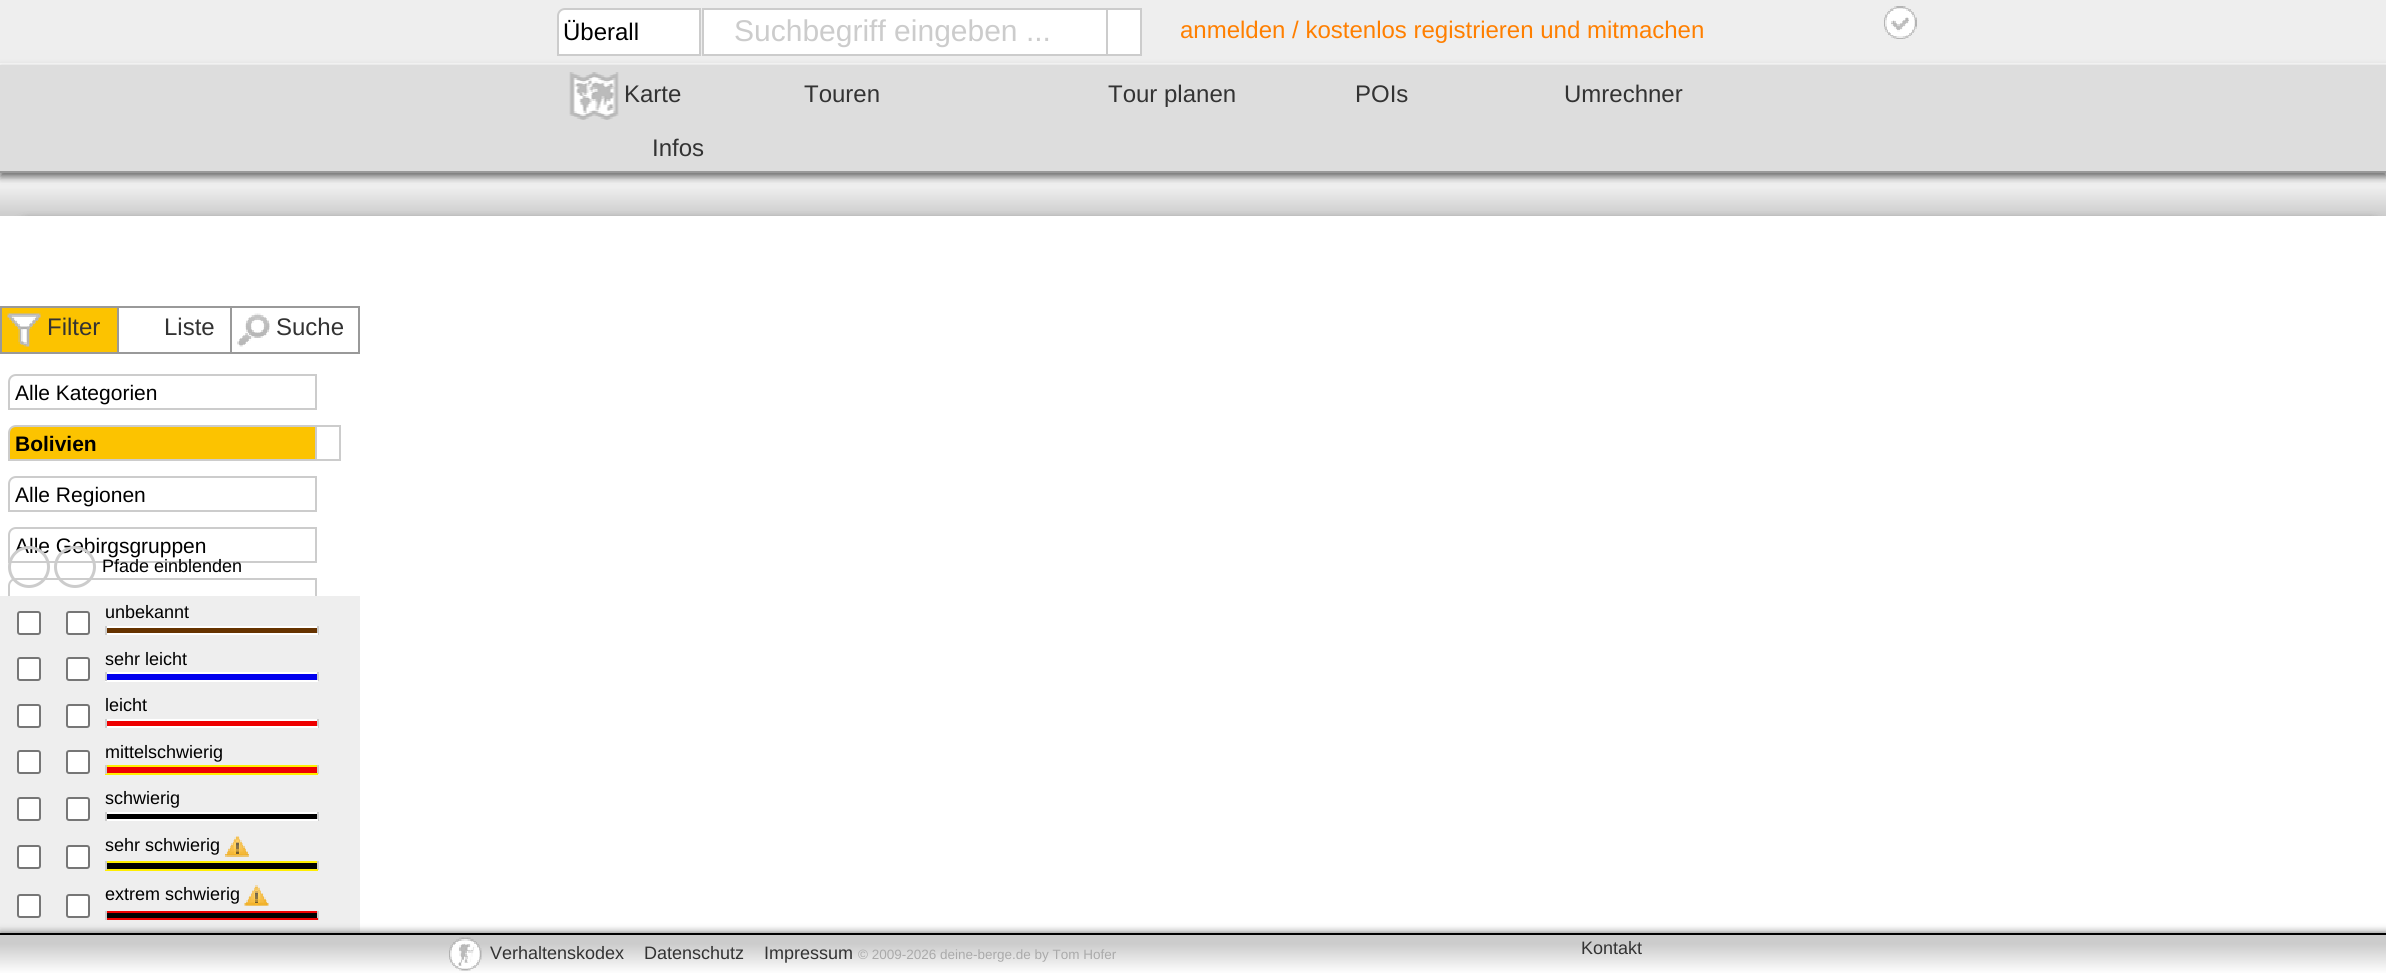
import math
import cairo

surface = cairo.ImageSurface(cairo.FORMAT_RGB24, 2386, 973)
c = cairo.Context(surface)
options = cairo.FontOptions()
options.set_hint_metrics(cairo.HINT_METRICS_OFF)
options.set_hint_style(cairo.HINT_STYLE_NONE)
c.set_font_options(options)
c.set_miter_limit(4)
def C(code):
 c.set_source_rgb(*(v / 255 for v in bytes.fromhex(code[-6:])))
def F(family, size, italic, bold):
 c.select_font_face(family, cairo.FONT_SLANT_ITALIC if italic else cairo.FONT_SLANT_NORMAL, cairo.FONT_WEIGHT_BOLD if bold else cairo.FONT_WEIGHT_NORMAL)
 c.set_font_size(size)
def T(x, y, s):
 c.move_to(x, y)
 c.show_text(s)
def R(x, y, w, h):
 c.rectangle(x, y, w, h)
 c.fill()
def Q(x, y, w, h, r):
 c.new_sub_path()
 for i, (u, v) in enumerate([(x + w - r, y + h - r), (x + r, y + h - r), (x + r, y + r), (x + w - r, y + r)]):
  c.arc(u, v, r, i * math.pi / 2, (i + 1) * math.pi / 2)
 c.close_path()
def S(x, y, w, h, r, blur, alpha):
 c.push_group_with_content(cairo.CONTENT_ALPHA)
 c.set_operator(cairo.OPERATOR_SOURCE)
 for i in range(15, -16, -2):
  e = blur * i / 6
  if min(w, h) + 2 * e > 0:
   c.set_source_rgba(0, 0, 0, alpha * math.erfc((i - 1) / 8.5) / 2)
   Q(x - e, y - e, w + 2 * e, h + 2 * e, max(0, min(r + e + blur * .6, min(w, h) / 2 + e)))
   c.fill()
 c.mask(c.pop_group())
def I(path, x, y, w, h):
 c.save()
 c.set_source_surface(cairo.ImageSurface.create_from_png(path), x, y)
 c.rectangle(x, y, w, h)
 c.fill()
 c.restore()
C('ffffff')
c.paint()
C('eeeeee')
R(0,0,2386,63)
C('ffffff')
c.new_path()
c.move_to(565,9)
c.line_to(700,9)
c.line_to(700,55)
c.line_to(558,55)
c.line_to(558,16)
c.curve_to(558,12,561,9,565,9)
c.close_path()
c.fill_preserve()
C('cccccc')
c.stroke()
F('Liberation Sans',24,0,0)
C('000000')
T(563,40,'Überall')
C('ffffff')
R(704,10,402,44)
c.rectangle(703,9,438,46)
C('cccccc')
c.stroke()
F('Liberation Sans',30,0,0)
T(734,41,'Suchbegriff eingeben ...')
C('ffffff')
c.rectangle(1107,9,34,46)
c.fill_preserve()
C('cccccc')
c.stroke()
F('Liberation Sans',24,0,0)
C('ff7f00')
T(1180,38,'anmelden / kostenlos registrieren und mitmachen')
I('1.png',1884,6,33,33)
gradient = cairo.LinearGradient(1193,130,1193,216)
gradient.add_color_stop_rgba(.5,1,1,1,1)
gradient.add_color_stop_rgba(1,0.8,0.8,0.8,1)
c.set_source(gradient)
R(0,175,2386,41)
C('666666')
S(0,69,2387,108,0,4,1)
C('dddddd')
R(0,65,2386,106)
C('999999')
R(0,171,2386,2)
I('2.png',569,72,50,48)
C('333333')
T(624,102,'Karte')
T(804,102,'Touren')
T(1108,102,'Tour planen')
T(1355,102,'POIs')
T(1564,102,'Umrechner')
T(652,156,'Infos')
C('333333')
S(6,221,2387,717,23,4,1)
C('ffffff')
R(0,216,2386,717)
C('fcc300')
R(2,308,115,44)
I('3.png',7,313,34,34)
c.rectangle(1,307,129,46)
C('999999')
c.stroke()
C('333333')
T(47,335,'Filter')
C('ffffff')
R(129,308,2,44)
c.rectangle(118,307,129,46)
C('999999')
c.stroke()
C('333333')
T(164,335,'Liste')
C('ffffff')
R(246,308,2,44)
I('4.png',237,313,33,34)
c.rectangle(231,307,128,46)
C('999999')
c.stroke()
C('333333')
T(276,335,'Suche')
c.new_path()
c.move_to(16,375)
c.line_to(316,375)
c.line_to(316,409)
c.line_to(9,409)
c.line_to(9,382)
c.curve_to(9,378,12,375,16,375)
c.close_path()
C('cccccc')
c.stroke()
F('Liberation Sans',21,0,0)
C('000000')
T(15,400,'Alle Kategorien')
C('fcc300')
c.new_path()
c.move_to(16,426)
c.line_to(316,426)
c.line_to(316,460)
c.line_to(9,460)
c.line_to(9,433)
c.curve_to(9,429,12,426,16,426)
c.close_path()
c.fill_preserve()
C('cccccc')
c.stroke()
F('Liberation Sans',21,0,1)
C('000000')
T(15,451,'Bolivien')
c.rectangle(316,426,24,34)
C('cccccc')
c.stroke()
c.new_path()
c.move_to(16,477)
c.line_to(316,477)
c.line_to(316,511)
c.line_to(9,511)
c.line_to(9,484)
c.curve_to(9,480,12,477,16,477)
c.close_path()
c.stroke()
F('Liberation Sans',21,0,0)
C('000000')
T(15,502,'Alle Regionen')
c.new_path()
c.move_to(16,528)
c.line_to(316,528)
c.line_to(316,562)
c.line_to(9,562)
c.line_to(9,535)
c.curve_to(9,531,12,528,16,528)
c.close_path()
C('cccccc')
c.stroke()
C('000000')
T(15,553,'Alle Gebirgsgruppen')
c.new_path()
c.move_to(16,579)
c.line_to(316,579)
c.line_to(316,613)
c.line_to(9,613)
c.line_to(9,586)
c.curve_to(9,582,12,579,16,579)
c.close_path()
C('cccccc')
c.stroke()
c.arc(29,567,19.5,0,2 * math.pi)
c.set_line_width(3)
c.stroke()
c.arc(75,567,19.5,0,2 * math.pi)
c.stroke()
F('Liberation Sans',18,0,0)
C('000000')
T(102,572,'Pfade einblenden')
C('eeeeee')
R(0,596,360,337)
C('ffffff')
Q(18,612,22,22,2)
c.fill_preserve()
C('767676')
c.set_line_width(2)
c.stroke()
C('ffffff')
Q(67,612,22,22,2)
c.fill_preserve()
C('767676')
c.stroke()
C('000000')
T(105,618,'unbekannt')
C('663300')
R(107,628,210,5)
C('ffffff')
R(105,626,213,2)
C('cccccc')
R(317,626,2,9)
C('ffffff')
R(105,633,213,2)
C('cccccc')
R(105,626,2,9)
C('ffffff')
Q(18,658,22,22,2)
c.fill_preserve()
C('767676')
c.stroke()
C('ffffff')
Q(67,658,22,22,2)
c.fill_preserve()
C('767676')
c.stroke()
C('000000')
T(105,665,'sehr leicht')
C('0000ee')
R(107,674,210,6)
C('ffffff')
R(105,672,213,2)
C('cccccc')
R(317,672,2,9)
C('ffffff')
R(105,680,213,2)
C('cccccc')
R(105,672,2,9)
C('ffffff')
Q(18,705,22,22,2)
c.fill_preserve()
C('767676')
c.stroke()
C('ffffff')
Q(67,705,22,22,2)
c.fill_preserve()
C('767676')
c.stroke()
C('000000')
T(105,711,'leicht')
C('ee0000')
R(107,721,210,5)
C('ffffff')
R(105,719,213,2)
C('cccccc')
R(317,719,2,9)
C('ffffff')
R(105,726,213,2)
C('cccccc')
R(105,719,2,9)
C('ffffff')
Q(18,751,22,22,2)
c.fill_preserve()
C('767676')
c.stroke()
C('ffffff')
Q(67,751,22,22,2)
c.fill_preserve()
C('767676')
c.stroke()
C('000000')
T(105,758,'mittelschwierig')
C('ee0000')
R(107,767,210,6)
C('ffee00')
R(105,765,213,2)
C('cccccc')
R(317,765,2,9)
C('ffee00')
R(105,773,213,2)
C('cccccc')
R(105,765,2,9)
C('ffffff')
Q(18,798,22,22,2)
c.fill_preserve()
C('767676')
c.stroke()
C('ffffff')
Q(67,798,22,22,2)
c.fill_preserve()
C('767676')
c.stroke()
C('000000')
T(105,804,'schwierig')
R(107,814,210,5)
C('ffffff')
R(105,812,213,2)
C('cccccc')
R(317,812,2,9)
C('ffffff')
R(105,819,213,2)
C('cccccc')
R(105,812,2,9)
C('ffffff')
Q(18,846,22,22,2)
c.fill_preserve()
C('767676')
c.stroke()
C('ffffff')
Q(67,846,22,22,2)
c.fill_preserve()
C('767676')
c.stroke()
C('000000')
T(105,851,'sehr schwierig')
I('5.png',225,836,24,21)
R(107,863,210,6)
C('ffee00')
R(105,861,213,2)
C('cccccc')
R(317,861,2,9)
C('ffee00')
R(105,869,213,2)
C('cccccc')
R(105,861,2,9)
C('ffffff')
Q(18,895,22,22,2)
c.fill_preserve()
C('767676')
c.stroke()
C('ffffff')
Q(67,895,22,22,2)
c.fill_preserve()
C('767676')
c.stroke()
C('000000')
T(105,900,'extrem schwierig')
I('6.png',244,885,25,21)
R(107,913,210,5)
C('ee0000')
R(105,911,213,2)
C('cccccc')
R(317,911,2,9)
C('ee0000')
R(105,918,213,2)
C('cccccc')
R(105,911,2,9)
C('666666')
S(0,933,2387,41,0,4,1)
gradient = cairo.LinearGradient(1193,934,1193,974)
gradient.add_color_stop_rgba(.25,0.8,0.8,0.8,1)
gradient.add_color_stop_rgba(1,1,1,1,1)
c.set_source(gradient)
R(0,935,2386,38)
C('000000')
R(0,933,2386,2)
I('7.png',449,937,33,34)
C('333333')
T(490,959,'Verhaltenskodex')
T(644,959,'Datenschutz')
T(764,959,'Impressum')
F('Liberation Sans',13.5,0,0)
C('aaaaaa')
T(858,959,'© 2009-2026 deine-berge.de by Tom Hofer')
F('Liberation Sans',18,0,0)
C('333333')
T(1581,954,'Kontakt')
surface.write_to_png('o.png')
